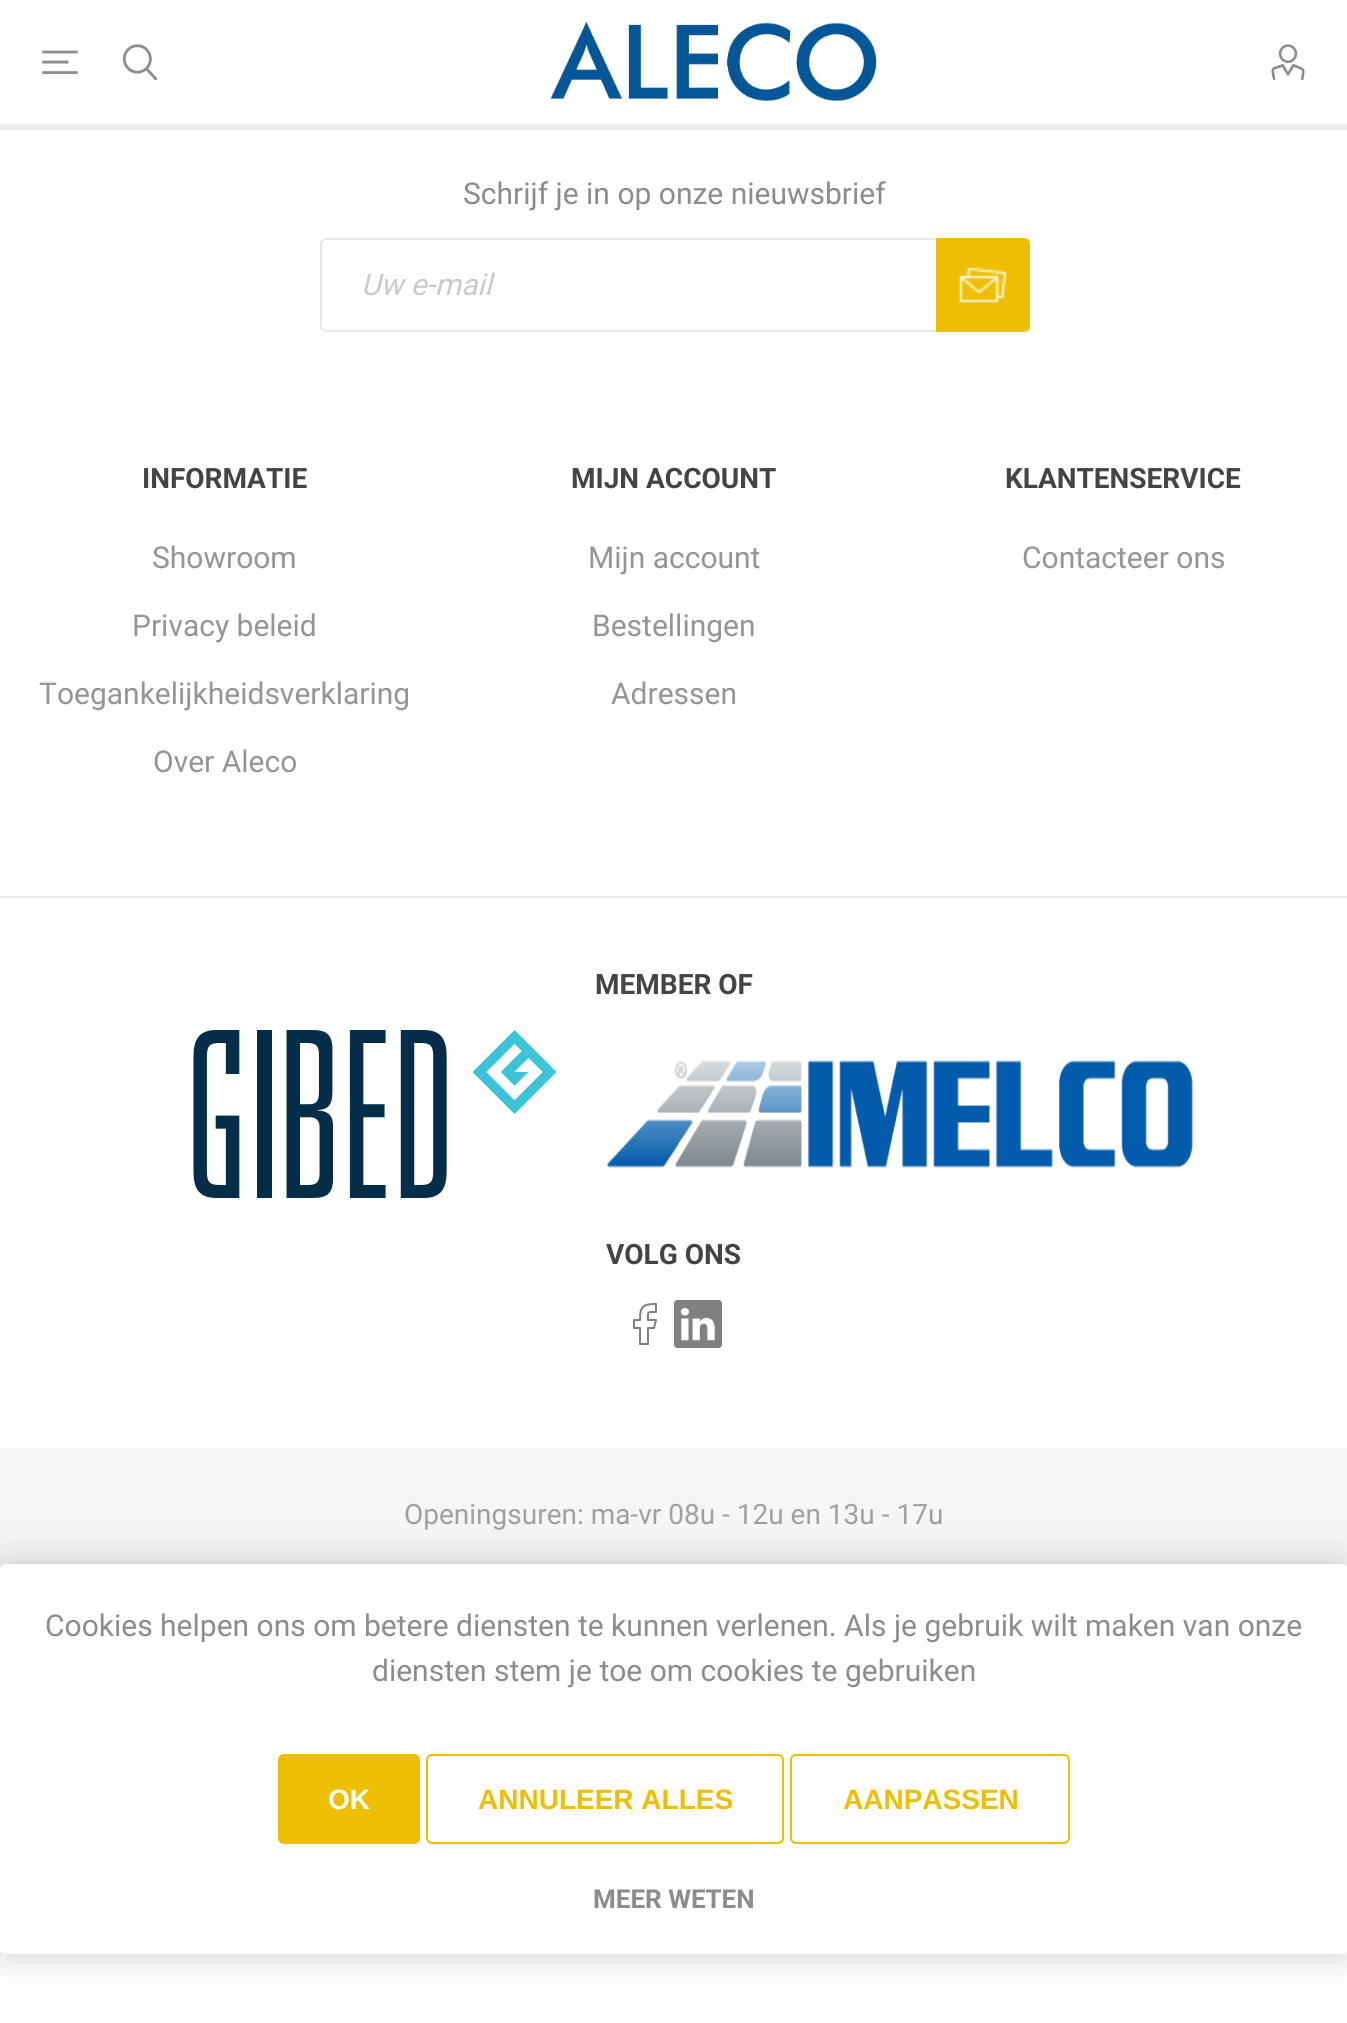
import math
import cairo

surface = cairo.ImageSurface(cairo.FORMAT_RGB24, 1347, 2023)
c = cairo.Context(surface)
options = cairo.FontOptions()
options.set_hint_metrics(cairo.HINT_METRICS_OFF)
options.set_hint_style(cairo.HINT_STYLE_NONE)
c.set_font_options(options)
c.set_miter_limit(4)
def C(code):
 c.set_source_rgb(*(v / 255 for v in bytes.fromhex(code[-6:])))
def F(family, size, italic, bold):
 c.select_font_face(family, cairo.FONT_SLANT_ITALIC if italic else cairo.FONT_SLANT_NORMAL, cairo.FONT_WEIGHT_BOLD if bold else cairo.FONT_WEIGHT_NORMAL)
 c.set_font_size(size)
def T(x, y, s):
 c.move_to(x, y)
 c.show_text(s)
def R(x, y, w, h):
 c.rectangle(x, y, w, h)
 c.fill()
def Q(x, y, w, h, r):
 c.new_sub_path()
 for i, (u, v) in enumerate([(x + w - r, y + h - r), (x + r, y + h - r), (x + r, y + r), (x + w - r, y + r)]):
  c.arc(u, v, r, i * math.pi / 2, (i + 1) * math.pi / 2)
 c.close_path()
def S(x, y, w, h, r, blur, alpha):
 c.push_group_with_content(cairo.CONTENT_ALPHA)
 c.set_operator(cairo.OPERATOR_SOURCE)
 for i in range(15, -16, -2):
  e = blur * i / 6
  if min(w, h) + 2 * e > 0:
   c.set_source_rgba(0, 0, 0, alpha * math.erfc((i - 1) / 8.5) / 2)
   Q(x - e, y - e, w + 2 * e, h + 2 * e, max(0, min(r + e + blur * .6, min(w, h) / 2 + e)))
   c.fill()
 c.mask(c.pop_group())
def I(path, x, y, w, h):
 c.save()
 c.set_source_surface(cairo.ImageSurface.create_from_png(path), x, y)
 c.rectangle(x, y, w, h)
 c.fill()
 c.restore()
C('ffffff')
c.paint()
C('eeeeee')
R(0,124,1347,6)
I('1.png',42,50,36,24)
I('2.png',122,44,36,37)
I('3.png',550,22,327,80)
I('4.png',1271,44,34,37)
F('Roboto',30,0,0)
C('8c8c8c')
T(463,204,'Schrijf je in op onze nieuwsbrief')
C('e7e7e7')
c.set_fill_rule(cairo.FILL_RULE_EVEN_ODD)
c.new_path()
c.move_to(326,238)
c.line_to(936,238)
c.line_to(936,332)
c.line_to(326,332)
c.curve_to(323,332,320,329,320,326)
c.line_to(320,244)
c.curve_to(320,241,323,238,326,238)
c.close_path()
c.move_to(326,240)
c.line_to(936,240)
c.line_to(936,330)
c.line_to(326,330)
c.curve_to(324,330,322,328,322,326)
c.line_to(322,244)
c.curve_to(322,242,324,240,326,240)
c.close_path()
c.fill()
F('Roboto',30,1,0)
C('cacaca')
T(361,295,'Uw e-mail')
C('eebe00')
c.new_path()
c.move_to(936,238)
c.line_to(1024,238)
c.curve_to(1027.5,238,1030,240.5,1030,244)
c.line_to(1030,326)
c.curve_to(1030,329.5,1027.5,332,1024,332)
c.line_to(936,332)
c.close_path()
c.fill()
I('5.png',959,267,48,36)
F('Roboto',28,0,1)
C('444444')
T(142,488,'INFORMATIE')
F('Roboto',30,0,0)
C('959595')
T(152,568,'Showroom')
T(132,636,'Privacy beleid')
T(39,704,'Toegankelijkheidsverklaring')
T(153,772,'Over Aleco')
F('Roboto',28,0,1)
C('444444')
T(571,488,'MIJN ACCOUNT')
F('Roboto',30,0,0)
C('959595')
T(588,568,'Mijn account')
T(592,636,'Bestellingen')
T(611,704,'Adressen')
F('Roboto',28,0,1)
C('444444')
T(1005,488,'KLANTENSERVICE')
F('Roboto',30,0,0)
C('959595')
T(1022,568,'Contacteer ons')
C('eeeeee')
R(0,896,1347,2)
F('Roboto',28,0,1)
C('444444')
T(595,994,'MEMBER OF')
I('6.png',193,1030,364,168)
I('7.png',607,1060,586,108)
T(606,1264,'VOLG ONS')
c.new_path()
c.move_to(656,1304)
c.curve_to(642.5,1304,640,1306.5,640,1320)
c.line_to(634,1320)
c.line_to(634,1328)
c.line_to(640,1328)
c.line_to(640,1344)
c.line_to(648,1344)
c.line_to(648,1328)
c.line_to(654,1328)
c.line_to(656,1320)
c.line_to(648,1320)
c.curve_to(648,1311,647,1312,656,1312)
c.close_path()
C('808080')
c.set_line_cap(cairo.LINE_CAP_ROUND)
c.set_line_join(cairo.LINE_JOIN_ROUND)
c.stroke()
I('8.png',674,1300,48,48)
C('f6f6f6')
R(0,1448,1347,122)
F('Roboto',28,0,0)
C('a0a0a0')
T(404,1524,'Openingsuren: ma-vr 08u - 12u en 13u - 17u')
C('000000')
S(0,1564,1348,390,6,20,.2)
C('ffffff')
Q(0,1564,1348,390,6)
c.fill()
F('Roboto',30,0,0)
C('8c8c8c')
T(45,1636,'Cookies helpen ons om betere diensten te kunnen verlenen. Als je gebruik wilt maken van onze')
T(372,1681,'diensten stem je toe om cookies te gebruiken')
C('eebe00')
Q(278,1754,142,90,6)
c.fill()
F('Liberation Sans',28,0,1)
C('ffffff')
T(328,1809,'OK')
Q(427,1755,356,88,5)
C('eebe00')
c.set_line_cap(cairo.LINE_CAP_BUTT)
c.set_line_join(cairo.LINE_JOIN_MITER)
c.stroke()
T(478,1809,'ANNULEER ALLES')
Q(791,1755,278,88,5)
c.stroke()
T(843,1809,'AANPASSEN')
F('Roboto',26,0,1)
C('8c8c8c')
T(593,1908,'MEER WETEN')
surface.write_to_png('o.png')
